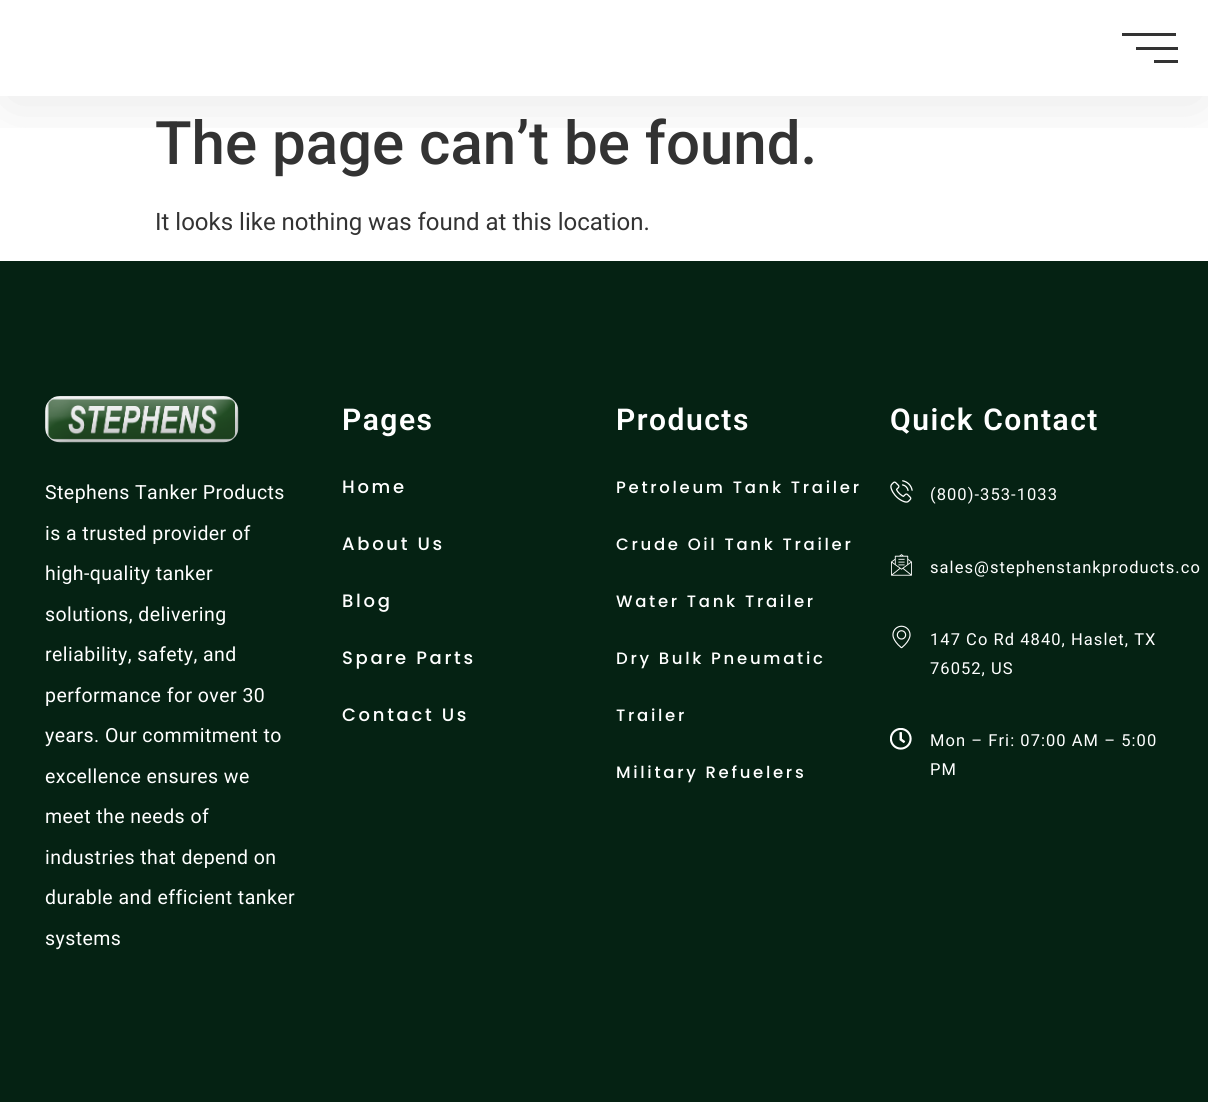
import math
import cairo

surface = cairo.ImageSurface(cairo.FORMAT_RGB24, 1208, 1102)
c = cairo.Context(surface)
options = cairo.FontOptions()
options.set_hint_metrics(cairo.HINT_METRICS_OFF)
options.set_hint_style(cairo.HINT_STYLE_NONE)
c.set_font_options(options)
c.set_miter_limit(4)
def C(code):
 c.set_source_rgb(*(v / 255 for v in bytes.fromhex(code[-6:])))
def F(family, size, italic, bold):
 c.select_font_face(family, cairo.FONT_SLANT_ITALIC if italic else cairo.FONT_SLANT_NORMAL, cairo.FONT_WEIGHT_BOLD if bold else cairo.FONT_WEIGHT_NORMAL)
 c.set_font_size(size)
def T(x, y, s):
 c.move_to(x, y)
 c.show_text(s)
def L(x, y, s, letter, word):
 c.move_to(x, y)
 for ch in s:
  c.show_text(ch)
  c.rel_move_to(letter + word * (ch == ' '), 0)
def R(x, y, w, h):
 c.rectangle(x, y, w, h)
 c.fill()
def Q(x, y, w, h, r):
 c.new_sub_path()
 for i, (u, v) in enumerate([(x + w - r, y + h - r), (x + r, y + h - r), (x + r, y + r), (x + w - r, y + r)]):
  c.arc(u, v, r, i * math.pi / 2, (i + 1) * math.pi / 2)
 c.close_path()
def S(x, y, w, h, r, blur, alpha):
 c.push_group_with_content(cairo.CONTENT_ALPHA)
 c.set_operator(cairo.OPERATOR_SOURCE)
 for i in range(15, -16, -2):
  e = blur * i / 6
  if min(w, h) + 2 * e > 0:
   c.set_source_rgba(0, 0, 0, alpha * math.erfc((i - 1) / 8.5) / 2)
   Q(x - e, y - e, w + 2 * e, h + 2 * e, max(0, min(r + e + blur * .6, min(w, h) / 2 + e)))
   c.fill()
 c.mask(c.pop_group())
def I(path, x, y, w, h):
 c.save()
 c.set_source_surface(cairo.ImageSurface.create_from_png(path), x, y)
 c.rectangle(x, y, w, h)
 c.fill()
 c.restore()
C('ffffff')
c.paint()
c.save()
c.rectangle(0,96,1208,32)
c.clip()
C('000000')
S(8,20,1194,81,0,32,.1)
c.restore()
C('333333')
R(1122,33,54,3)
R(1136,47,42,3)
R(1154,60,24,3)
F('Roboto Medium',60,0,0)
T(155,164,'The page can’t be found.')
F('Roboto',24,0,0)
T(155,230,'It looks like nothing was found at this location.')
C('052213')
R(0,261,1208,841)
I('1.png',45,396,194,47)
F('Roboto',19.5,0,0)
C('ffffff')
L(45,499,'Stephens Tanker Products',.45,0)
L(45,540,'is a trusted provider of',.45,0)
L(45,580,'high-quality tanker',.45,0)
L(45,621,'solutions, delivering',.45,0)
L(45,661,'reliability, safety, and',.45,0)
L(45,702,'performance for over 30',.45,0)
L(45,742,'years. Our commitment to',.45,0)
L(45,783,'excellence ensures we',.45,0)
L(45,823,'meet the needs of',.45,0)
L(45,864,'industries that depend on',.45,0)
L(45,904,'durable and efficient tanker',.45,0)
L(45,945,'systems',.45,0)
F('Roboto SemiBold',30,0,0)
L(342,430,'Pages',1.5,0)
F('Poppins Medium',18,0,0)
L(342,493,'Home',2.7,0)
L(342,550,'About Us',2.7,0)
L(342,607,'Blog',2.7,0)
L(342,664,'Spare Parts',2.7,0)
L(342,721,'Contact Us',2.7,0)
F('Roboto SemiBold',30,0,0)
L(616,430,'Products',1.5,0)
F('Poppins Medium',16.5,0,0)
L(616,493,'Petroleum Tank Trailer',2.7,0)
L(616,550,'Crude Oil Tank Trailer',2.7,0)
L(616,607,'Water Tank Trailer',2.7,0)
L(616,664,'Dry Bulk Pneumatic',2.7,0)
L(616,721,'Trailer',2.7,0)
L(616,778,'Military Refuelers',2.7,0)
F('Roboto SemiBold',30,0,0)
L(890,430,'Quick Contact',1.5,0)
I('2.png',890,480,23,23)
F('Roboto',16.5,0,0)
L(930,500,'(800)-353-1033',1.05,0)
I('3.png',891,554,21,22)
L(930,573,'sales@stephenstankproducts.co',1.05,0)
I('4.png',892,625,19,24)
L(930,645,'147 Co Rd 4840, Haslet, TX',1.05,0)
L(930,674,'76052, US',1.05,0)
I('5.png',890,728,22,22)
L(930,746,'Mon – Fri: 07:00 AM – 5:00',1.05,0)
L(930,775,'PM',1.05,0)
surface.write_to_png('o.png')
